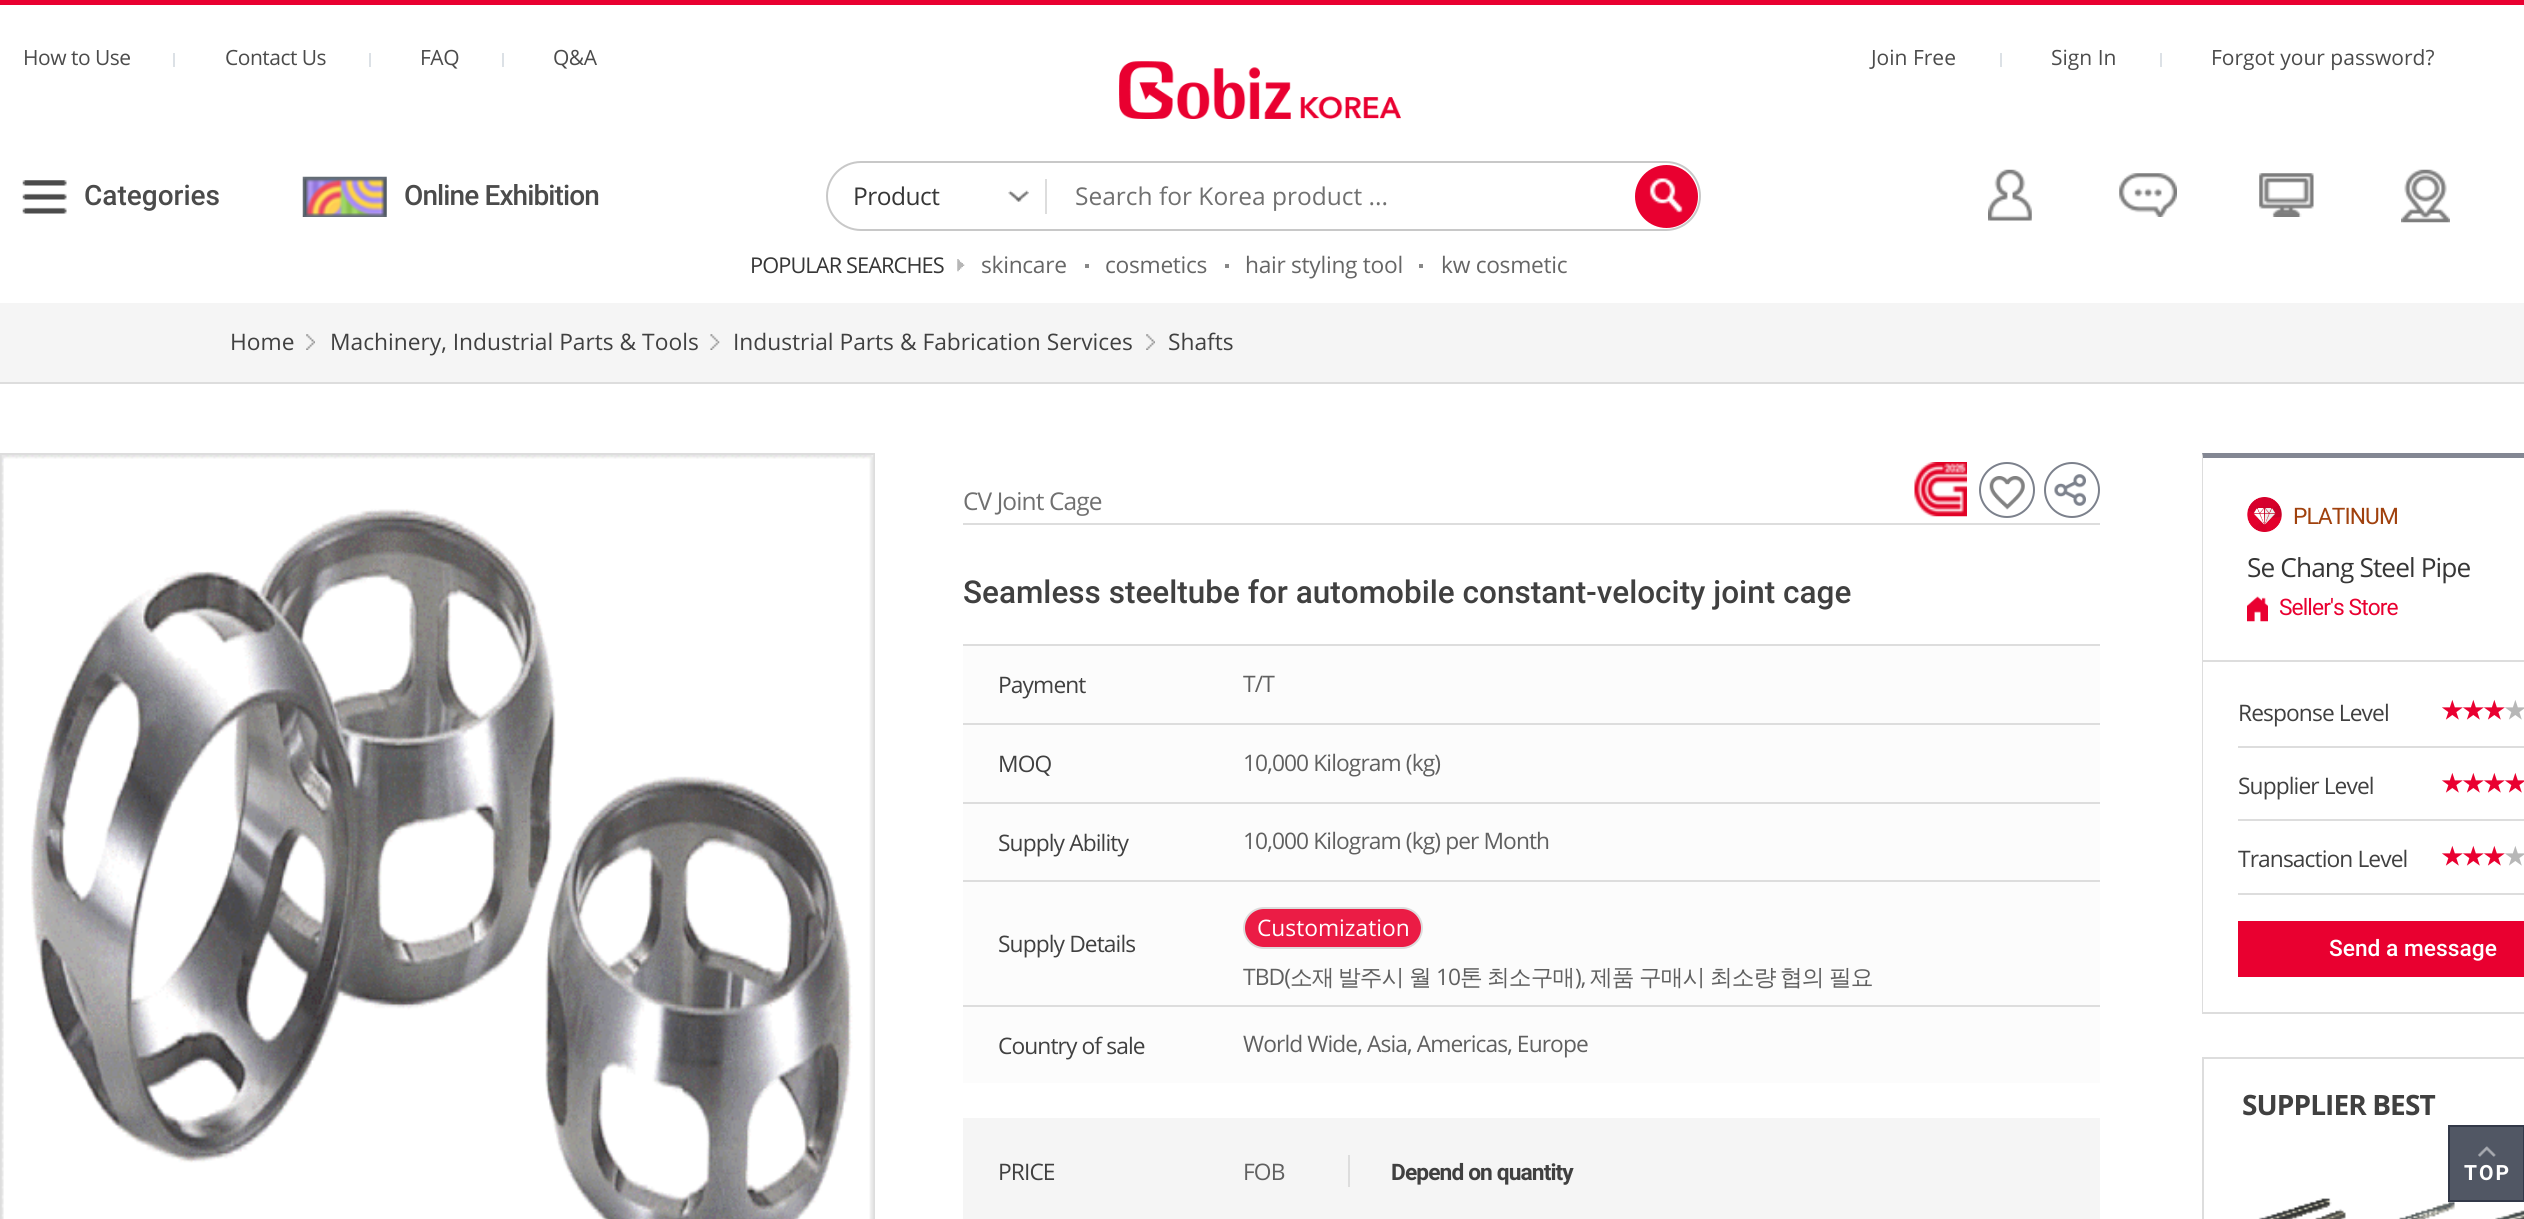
import math
import cairo

surface = cairo.ImageSurface(cairo.FORMAT_RGB24, 2524, 1219)
c = cairo.Context(surface)
options = cairo.FontOptions()
options.set_hint_metrics(cairo.HINT_METRICS_OFF)
options.set_hint_style(cairo.HINT_STYLE_NONE)
c.set_font_options(options)
c.set_miter_limit(4)
def C(code):
 c.set_source_rgb(*(v / 255 for v in bytes.fromhex(code[-6:])))
def F(family, size, italic, bold):
 c.select_font_face(family, cairo.FONT_SLANT_ITALIC if italic else cairo.FONT_SLANT_NORMAL, cairo.FONT_WEIGHT_BOLD if bold else cairo.FONT_WEIGHT_NORMAL)
 c.set_font_size(size)
def T(x, y, s):
 c.move_to(x, y)
 c.show_text(s)
def L(x, y, s, letter, word):
 c.move_to(x, y)
 for ch in s:
  c.show_text(ch)
  c.rel_move_to(letter + word * (ch == ' '), 0)
def R(x, y, w, h):
 c.rectangle(x, y, w, h)
 c.fill()
def Q(x, y, w, h, r):
 c.new_sub_path()
 for i, (u, v) in enumerate([(x + w - r, y + h - r), (x + r, y + h - r), (x + r, y + r), (x + w - r, y + r)]):
  c.arc(u, v, r, i * math.pi / 2, (i + 1) * math.pi / 2)
 c.close_path()
def I(path, x, y, w, h):
 c.save()
 c.set_source_surface(cairo.ImageSurface.create_from_png(path), x, y)
 c.rectangle(x, y, w, h)
 c.fill()
 c.restore()
C('ffffff')
c.paint()
F('Open Sans',21,0,0)
C('4b4b4b')
L(23,65,'How to Use',-.5,0)
C('dce1e6')
R(173,53,2,14)
C('4b4b4b')
L(225,65,'Contact Us',-.5,0)
C('dce1e6')
R(369,53,2,14)
C('4b4b4b')
L(420,65,'FAQ',-.5,0)
C('dce1e6')
R(502,53,2,14)
C('4b4b4b')
L(553,65,'Q&A',-.5,0)
T(1871,65,'Join Free')
C('dce1e6')
R(2000,53,2,14)
C('4b4b4b')
T(2051,65,'Sign In')
C('dce1e6')
R(2160,53,2,14)
C('4b4b4b')
T(2211,65,'Forgot your password?')
I('1.png',1988,169,44,52)
I('2.png',2119,173,58,44)
I('3.png',2259,173,55,44)
I('4.png',2401,169,49,54)
I('5.png',22,180,45,34)
F('Roboto Medium',28,0,0)
T(84,205,'Categories')
I('6.png',302,176,85,41)
L(404,205,'Online Exhibition',-.9,0)
C('e90030')
R(0,0,2524,5)
I('7.png',1119,61,282,58)
Q(827,162,873,68,34)
C('c8c8c8')
c.stroke()
I('8.png',1008,190,21,12)
F('Open Sans',24.5,0,0)
C('363636')
L(853,205,'Product',-.5,0)
C('dddddd')
R(1045,179,2,35)
C('707070')
T(1075,205,'Search for Korea product ...')
C('e90030')
c.new_path()
c.arc(1666.5,196.5,31.5,0,2 * math.pi)
c.fill()
I('9.png',1649,178,34,35)
I('10.png',957,259,8,13)
F('Open Sans',21.75,0,0)
C('363636')
L(750,273,'POPULAR SEARCHES',-.9,0)
F('Open Sans',22.75,0,0)
C('666666')
L(981,273,'skincare',-.3,0)
C('888888')
R(1085,264,4,4)
C('666666')
L(1105,273,'cosmetics',-.3,0)
C('888888')
R(1225,264,4,4)
C('666666')
L(1245,273,'hair styling tool',-.3,0)
C('888888')
R(1419,264,4,4)
C('666666')
L(1441,273,'kw cosmetic',-.3,0)
C('f5f5f5')
R(0,303,2524,79)
C('dddddd')
R(0,382,2524,2)
C('404040')
T(230,350,'Home')
I('11.png',306,334,9,16)
T(330,350,'Machinery, Industrial Parts & Tools')
I('12.png',710,334,10,16)
T(733,350,'Industrial Parts & Fabrication Services')
I('11.png',1146,334,9,16)
T(1168,350,'Shafts')
c.rectangle(1,454,873,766)
C('dddddd')
c.stroke()
I('13.png',1,455,873,764)
R(963,523,1137,2)
F('Open Sans',24.5,0,0)
C('707070')
L(963,510,'CV Joint Cage',-.9,0)
I('14.png',1914,462,53,55)
I('15.png',1989,476,36,34)
c.arc(2007,490,27,0,2 * math.pi)
C('7c818c')
c.stroke()
I('16.png',2054,474,32,32)
c.arc(2072,490,27,0,2 * math.pi)
c.stroke()
F('Roboto Medium',31.5,0,0)
C('404040')
T(963,603,'Seamless steeltube for automobile constant-velocity joint cage')
C('fcfcfc')
R(963,646,1137,77)
C('dddddd')
R(963,644,1137,2)
F('Open Sans',22.75,0,0)
C('404040')
L(998,693,'Payment',-.9,0)
C('606060')
L(1243,692,'T/T',-.9,0)
C('fcfcfc')
R(963,725,1137,77)
C('dddddd')
R(963,723,1137,2)
C('404040')
L(998,772,'MOQ',-.9,0)
C('606060')
L(1243,771,'10,000 Kilogram (kg)',-.9,0)
C('fcfcfc')
R(963,804,1137,76)
C('dddddd')
R(963,802,1137,2)
C('404040')
L(998,851,'Supply Ability',-.9,0)
C('606060')
L(1243,849,'10,000 Kilogram (kg) per Month',-.9,0)
C('fcfcfc')
R(963,882,1137,123)
C('dddddd')
R(963,880,1137,2)
C('404040')
L(998,952,'Supply Details',-.9,0)
C('eb1c45')
Q(1244,908,178,40,20)
c.fill_preserve()
C('dddddd')
c.stroke()
C('ffffff')
T(1257,936,'Customization')
C('606060')
L(1243,985,'TBD(',-.9,0)
F('WenQuanYi Zen Hei Medium',22.75,0,0)
L(1290,985,'소재',-.9,0)
L(1338,985,'발주시',-.9,0)
L(1409,985,'월',-.9,0)
F('Open Sans',22.75,0,0)
L(1436,985,'10',-.9,0)
F('WenQuanYi Zen Hei Medium',22.75,0,0)
L(1460,985,'톤',-.9,0)
L(1487,985,'최소구매',-.9,0)
F('Open Sans',22.75,0,0)
L(1575,985,'),',-.9,0)
F('WenQuanYi Zen Hei Medium',22.75,0,0)
L(1590,985,'제품',-.9,0)
L(1639,985,'구매시',-.9,0)
L(1710,985,'최소량',-.9,0)
L(1780,985,'협의',-.9,0)
L(1829,985,'필요',-.9,0)
C('fcfcfc')
R(963,1007,1137,76)
C('dddddd')
R(963,1005,1137,2)
F('Open Sans',22.75,0,0)
C('404040')
L(998,1054,'Country of sale',-.9,0)
C('606060')
L(1243,1052,'World Wide, Asia, Americas, Europe',-.9,0)
C('f5f5f5')
R(963,1118,1137,101)
C('404040')
L(998,1180,'PRICE',-.9,0)
C('dddddd')
R(1348,1155,2,32)
C('606060')
L(1243,1180,'FOB',-.9,0)
F('Roboto',22.75,0,1)
C('404040')
L(1391,1180,'Depend on quantity',-.9,0)
C('838793')
c.new_path()
c.move_to(2202,453)
c.line_to(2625,453)
c.line_to(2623,458)
c.line_to(2203,458)
c.close_path()
c.fill()
C('dddddd')
R(2202,1012,322,2)
c.new_path()
c.move_to(2202,1013)
c.line_to(2202,453)
c.line_to(2203,458)
c.line_to(2203,1012)
c.close_path()
c.fill()
R(2203,660,321,2)
I('17.png',2247,497,35,35)
F('Roboto',22.75,0,0)
C('a0410d')
L(2293,524,'PLATINUM',-.9,0)
F('Open Sans',26.25,0,0)
C('363636')
L(2247,577,'Se Chang Steel Pipe',-.9,0)
I('18.png',2247,596,21,26)
F('Roboto',22.75,0,0)
C('e90030')
L(2279,615,'Seller\'s Store',-.9,0)
C('dddddd')
R(2238,746,286,2)
F('Open Sans',22.75,0,0)
C('404040')
L(2238,721,'Response Level',-.9,0)
F('DejaVu Sans',24.5,0,1)
C('e90030')
L(2441,719,'★',-4,0)
L(2462,719,'★',-4,0)
L(2483,719,'★',-4,0)
C('b7b7b7')
L(2504,719,'★',-4,0)
C('dddddd')
R(2238,819,286,2)
F('Open Sans',22.75,0,0)
C('404040')
L(2238,794,'Supplier Level',-.9,0)
F('DejaVu Sans',24.5,0,1)
C('e90030')
L(2441,792,'★',-4,0)
L(2462,792,'★',-4,0)
L(2483,792,'★',-4,0)
L(2504,792,'★',-4,0)
C('dddddd')
R(2238,893,286,2)
F('Open Sans',22.75,0,0)
C('404040')
L(2238,867,'Transaction Level',-.9,0)
F('DejaVu Sans',24.5,0,1)
C('e90030')
L(2441,865,'★',-4,0)
L(2462,865,'★',-4,0)
L(2483,865,'★',-4,0)
C('b7b7b7')
L(2504,865,'★',-4,0)
C('e90030')
R(2238,921,286,56)
F('Roboto Medium',22.75,0,0)
C('ffffff')
T(2329,956,'Send a message')
c.rectangle(2203,1058,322,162)
C('dddddd')
c.stroke()
F('Open Sans',28,0,1)
C('404040')
L(2242,1115,'SUPPLIER BEST',-.9,0)
I('19.png',2258,1198,266,21)
C('515764')
c.rectangle(2449,1126,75,75)
c.fill_preserve()
C('333949')
c.stroke()
I('20.png',2478,1146,18,11)
F('Roboto',21,0,1)
C('ffffff')
L(2464,1180,'TOP',2,0)
surface.write_to_png('o.png')
